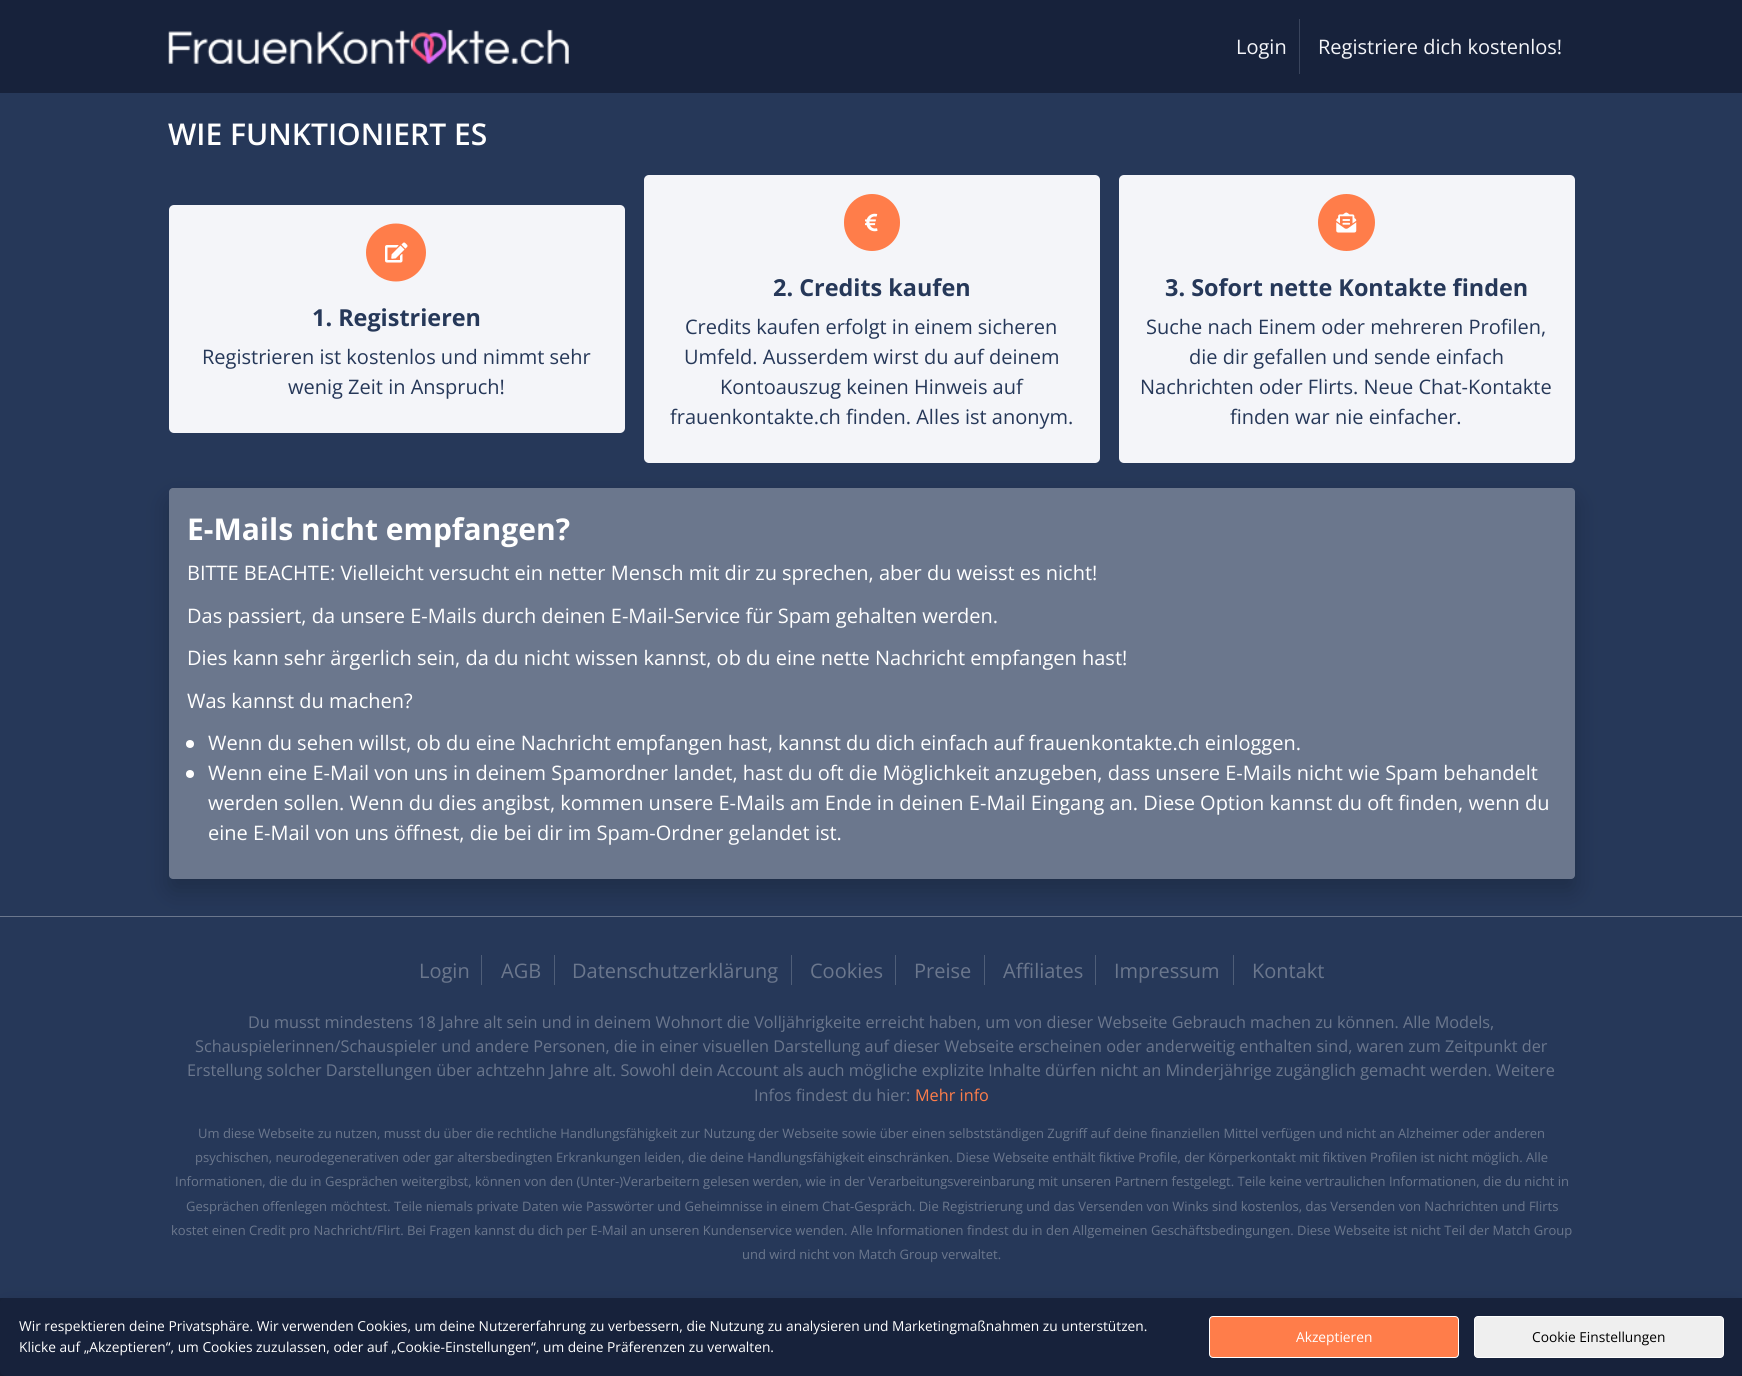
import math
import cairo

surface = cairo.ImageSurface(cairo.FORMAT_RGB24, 1742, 1376)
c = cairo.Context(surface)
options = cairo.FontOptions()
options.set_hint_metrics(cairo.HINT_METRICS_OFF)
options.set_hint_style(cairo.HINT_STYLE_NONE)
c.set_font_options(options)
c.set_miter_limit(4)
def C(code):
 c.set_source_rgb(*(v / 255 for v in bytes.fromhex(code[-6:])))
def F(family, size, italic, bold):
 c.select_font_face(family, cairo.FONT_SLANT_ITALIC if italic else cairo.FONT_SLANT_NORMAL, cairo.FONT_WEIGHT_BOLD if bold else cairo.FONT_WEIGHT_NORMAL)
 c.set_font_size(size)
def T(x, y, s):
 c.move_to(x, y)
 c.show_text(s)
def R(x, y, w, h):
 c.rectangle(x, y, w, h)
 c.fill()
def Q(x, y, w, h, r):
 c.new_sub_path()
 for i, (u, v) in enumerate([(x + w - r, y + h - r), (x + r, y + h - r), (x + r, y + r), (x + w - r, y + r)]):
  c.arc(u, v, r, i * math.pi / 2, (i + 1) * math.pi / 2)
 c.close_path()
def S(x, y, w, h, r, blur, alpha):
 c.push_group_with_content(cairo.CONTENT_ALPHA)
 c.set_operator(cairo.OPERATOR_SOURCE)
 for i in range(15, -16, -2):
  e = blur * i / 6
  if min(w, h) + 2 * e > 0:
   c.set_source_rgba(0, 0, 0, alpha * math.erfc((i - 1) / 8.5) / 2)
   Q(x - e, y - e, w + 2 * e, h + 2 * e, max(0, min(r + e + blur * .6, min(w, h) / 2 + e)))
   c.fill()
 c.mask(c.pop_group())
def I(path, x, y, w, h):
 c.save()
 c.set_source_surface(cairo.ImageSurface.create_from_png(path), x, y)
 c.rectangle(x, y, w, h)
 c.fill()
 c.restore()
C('263859')
c.paint()
C('17223b')
R(0,0,1742,93)
I('1.png',168,29,401,35)
C('39445c')
R(1299,19,1,55)
F('Open Sans',20,0,0)
C('f4f5f9')
T(1236,54,'Login')
T(1318,54,'Registriere dich kostenlos!')
F('Open Sans SemiBold',30,0,0)
C('ffffff')
T(168,145,'WIE FUNKTIONIERT ES')
C('f4f5f9')
Q(169,205,456,228,5)
c.fill()
C('ff7d4a')
c.new_path()
c.move_to(396,223.5)
c.curve_to(412.5,223.5,426,236.5,426,252.5)
c.curve_to(426,268.5,412.5,281.5,396,281.5)
c.curve_to(379.5,281.5,366,268.5,366,252.5)
c.curve_to(366,236.5,379.5,223.5,396,223.5)
c.close_path()
c.fill()
I('2.png',385,242,23,21)
F('Open Sans',23.4,0,1)
C('263859')
T(312,326,'1. Registrieren')
F('Open Sans',20,0,0)
T(202,364,'Registrieren ist kostenlos und nimmt sehr')
T(288,394,'wenig Zeit in Anspruch!')
C('f4f5f9')
Q(644,175,456,288,5)
c.fill()
C('ff7d4a')
Q(844,194,56,57,28)
c.fill()
I('3.png',865,213,13,19)
F('Open Sans',23.4,0,1)
C('263859')
T(773,296,'2. Credits kaufen')
F('Open Sans',20,0,0)
T(685,334,'Credits kaufen erfolgt in einem sicheren')
T(684,364,'Umfeld. Ausserdem wirst du auf deinem')
T(720,394,'Kontoauszug keinen Hinweis auf')
T(670,424,'frauenkontakte.ch finden. Alles ist anonym.')
C('f4f5f9')
Q(1119,175,456,288,5)
c.fill()
C('ff7d4a')
c.arc(1346.5,222.5,28.5,0,2 * math.pi)
c.fill()
I('4.png',1336,212,21,21)
F('Open Sans',23.4,0,1)
C('263859')
T(1165,296,'3. Sofort nette Kontakte finden')
F('Open Sans',20,0,0)
T(1146,334,'Suche nach Einem oder mehreren Profilen,')
T(1189,364,'die dir gefallen und sende einfach')
T(1140,394,'Nachrichten oder Flirts. Neue Chat-Kontakte')
T(1230,424,'finden war nie einfacher.')
C('6b778d')
R(0,916,1742,1)
C('000000')
S(169,500,1406,391,4,12.5,.2)
C('6b778d')
Q(169,488,1406,391,4)
c.fill()
F('Open Sans',30,0,1)
C('ffffff')
T(187,540,'E-Mails nicht empfangen?')
F('Open Sans',20,0,0)
T(187,580,'BITTE BEACHTE: Vielleicht versucht ein netter Mensch mit dir zu sprechen, aber du weisst es nicht!')
T(187,623,'Das passiert, da unsere E-Mails durch deinen E-Mail-Service für Spam gehalten werden.')
T(187,665,'Dies kann sehr ärgerlich sein, da du nicht wissen kannst, ob du eine nette Nachricht empfangen hast!')
T(187,708,'Was kannst du machen?')
c.new_path()
c.arc(190,744,4,0,2 * math.pi)
c.fill()
T(208,750,'Wenn du sehen willst, ob du eine Nachricht empfangen hast, kannst du dich einfach auf frauenkontakte.ch einloggen.')
c.new_path()
c.arc(190,774,4,0,2 * math.pi)
c.fill()
T(208,780,'Wenn eine E-Mail von uns in deinem Spamordner landet, hast du oft die Möglichkeit anzugeben, dass unsere E-Mails nicht wie Spam behandelt')
T(208,810,'werden sollen. Wenn du dies angibst, kommen unsere E-Mails am Ende in deinen E-Mail Eingang an. Diese Option kannst du oft finden, wenn du')
T(208,840,'eine E-Mail von uns öffnest, die bei dir im Spam-Ordner gelandet ist.')
C('4f5e78')
R(481,955,1,30)
C('6b778d')
T(419,978,'Login')
C('4f5e78')
R(554,955,1,30)
C('6b778d')
T(501,978,'AGB')
C('4f5e78')
R(791,955,1,30)
C('6b778d')
T(572,978,'Datenschutzerklärung')
C('4f5e78')
R(895,955,1,30)
C('6b778d')
T(810,978,'Cookies')
C('4f5e78')
R(984,955,1,30)
C('6b778d')
T(914,978,'Preise')
C('4f5e78')
R(1095,955,1,30)
C('6b778d')
T(1003,978,'Affiliates')
C('4f5e78')
R(1233,955,1,30)
C('6b778d')
T(1114,978,'Impressum')
T(1252,978,'Kontakt')
F('Open Sans',16.25,0,0)
T(248,1028,'Du musst mindestens 18 Jahre alt sein und in deinem Wohnort die Volljährigkeite erreicht haben, um von dieser Webseite Gebrauch machen zu können. Alle Models,')
T(195,1052,'Schauspielerinnen/Schauspieler und andere Personen, die in einer visuellen Darstellung auf dieser Webseite erscheinen oder anderweitig enthalten sind, waren zum Zeitpunkt der')
T(187,1076,'Erstellung solcher Darstellungen über achtzehn Jahre alt. Sowohl dein Account als auch mögliche explizite Inhalte dürfen nicht an Minderjährige zugänglich gemacht werden. Weitere')
T(754,1101,'Infos findest du hier:')
C('ff7d4a')
T(915,1101,'Mehr info')
F('Open Sans',13,0,0)
C('6b778d')
T(198,1138,'Um diese Webseite zu nutzen, musst du über die rechtliche Handlungsfähigkeit zur Nutzung der Webseite sowie über einen selbstständigen Zugriff auf deine finanziellen Mittel verfügen und nicht an Alzheimer oder anderen')
T(195,1162,'psychischen, neurodegenerativen oder gar altersbedingten Erkrankungen leiden, die deine Handlungsfähigkeit einschränken. Diese Webseite enthält fiktive Profile, der Körperkontakt mit fiktiven Profilen ist nicht möglich. Alle')
T(175,1186,'Informationen, die du in Gesprächen weitergibst, können von den (Unter-)Verarbeitern gelesen werden, wie in der Verarbeitungsvereinbarung mit unseren Partnern festgelegt. Teile keine vertraulichen Informationen, die du nicht in')
T(186,1211,'Gesprächen offenlegen möchtest. Teile niemals private Daten wie Passwörter und Geheimnisse in einem Chat-Gespräch. Die Registrierung und das Versenden von Winks sind kostenlos, das Versenden von Nachrichten und Flirts')
T(171,1235,'kostet einen Credit pro Nachricht/Flirt. Bei Fragen kannst du dich per E-Mail an unseren Kundenservice wenden. Alle Informationen findest du in den Allgemeinen Geschäftsbedingungen. Diese Webseite ist nicht Teil der Match Group')
T(742,1259,'und wird nicht von Match Group verwaltet.')
C('17223b')
R(0,1298,1742,78)
C('000000')
S(0,1310,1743,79,6,12.5,.2)
C('17223b')
Q(0,1298,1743,78,6)
c.fill()
F('Open Sans',13.75,0,0)
C('ffffff')
T(19,1331,'Wir respektieren deine Privatsphäre. Wir verwenden Cookies, um deine Nutzererfahrung zu verbessern, die Nutzung zu analysieren und Marketingmaßnahmen zu unterstützen.')
T(19,1352,'Klicke auf „Akzeptieren“, um Cookies zuzulassen, oder auf „Cookie-Einstellungen“, um deine Präferenzen zu verwalten.')
C('ff7d4a')
Q(1209.5,1316.5,249,41,3.5)
c.fill_preserve()
C('ffffff')
c.set_line_width(1)
c.stroke()
T(1296,1342,'Akzeptieren')
C('efefef')
Q(1474.5,1316.5,249,41,3.5)
c.fill_preserve()
C('ffffff')
c.stroke()
C('000000')
T(1532,1342,'Cookie Einstellungen')
surface.write_to_png('o.png')
